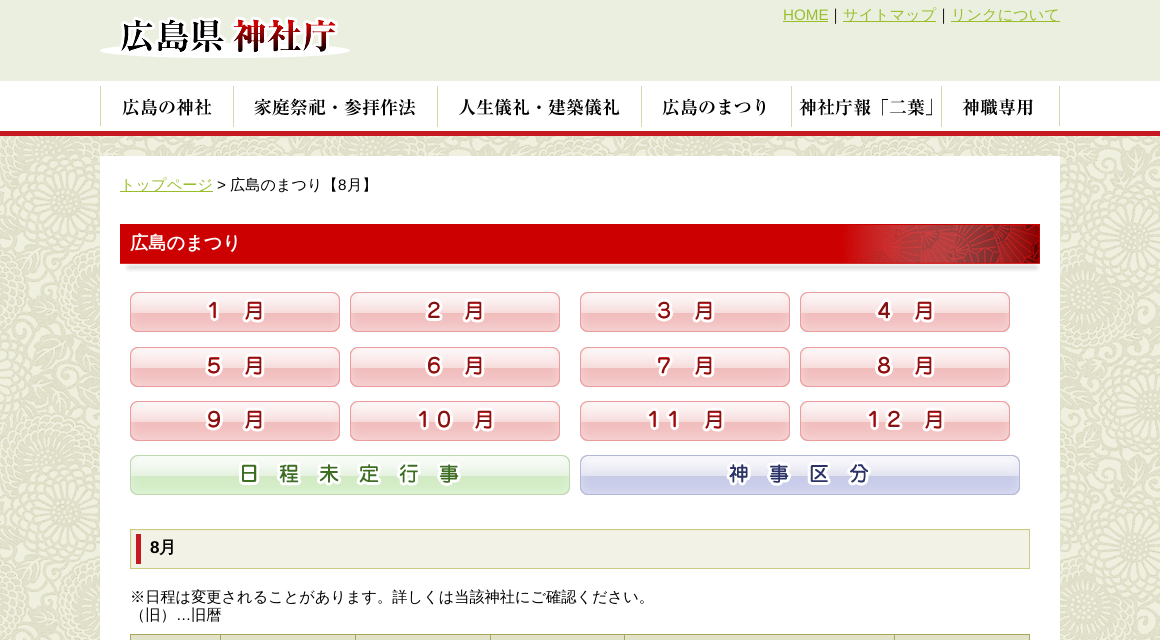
import math
import cairo

surface = cairo.ImageSurface(cairo.FORMAT_RGB24, 1160, 640)
c = cairo.Context(surface)
options = cairo.FontOptions()
options.set_hint_metrics(cairo.HINT_METRICS_OFF)
options.set_hint_style(cairo.HINT_STYLE_NONE)
c.set_font_options(options)
c.set_miter_limit(4)
def C(code):
 c.set_source_rgb(*(v / 255 for v in bytes.fromhex(code[-6:])))
def F(family, size, italic, bold):
 c.select_font_face(family, cairo.FONT_SLANT_ITALIC if italic else cairo.FONT_SLANT_NORMAL, cairo.FONT_WEIGHT_BOLD if bold else cairo.FONT_WEIGHT_NORMAL)
 c.set_font_size(size)
def T(x, y, s):
 c.move_to(x, y)
 c.show_text(s)
def R(x, y, w, h):
 c.rectangle(x, y, w, h)
 c.fill()
def I(path, x, y, w, h):
 c.save()
 c.set_source_surface(cairo.ImageSurface.create_from_png(path), x, y)
 c.rectangle(x, y, w, h)
 c.fill()
 c.restore()
C('ffffff')
c.paint()
I('1.png',0,136,1160,504)
I('2.png',0,0,1160,136)
I('3.png',100,16,250,42)
F('Liberation Sans',15.2,0,0)
C('98bf2a')
T(783,20,'HOME')
R(783,21,45,1)
F('WenQuanYi Zen Hei Medium',15.2,0,0)
C('000000')
T(828,20,'｜')
C('98bf2a')
R(843,21,93,1)
T(843,20,'サイトマップ')
C('000000')
T(936,20,'｜')
C('98bf2a')
R(951,21,109,1)
T(951,20,'リンクについて')
I('4.png',100,86,112,40)
I('5.png',233,86,205,41)
I('6.png',459,98,161,18)
I('7.png',641,86,124,41)
I('8.png',791,86,141,41)
I('9.png',941,86,119,41)
C('ffffff')
R(100,156,960,484)
C('98bf2a')
R(120,191,93,1)
T(120,190,'トップページ')
F('Liberation Sans',15.2,0,0)
C('000000')
T(217,190,'>')
F('WenQuanYi Zen Hei Medium',15.2,0,0)
T(230,190,'広島のまつり【')
F('Liberation Sans',15.2,0,0)
T(338,190,'8')
F('WenQuanYi Zen Hei Medium',15.2,0,0)
T(347,190,'月】')
I('10.png',120,224,920,48)
F('WenQuanYi Zen Hei',18.25,0,1)
C('ffffff')
T(130,249,'広島のまつり')
I('11.png',130,292,210,40)
I('12.png',350,292,210,40)
I('13.png',580,292,210,40)
I('14.png',800,292,210,40)
I('15.png',130,347,210,40)
I('16.png',350,347,210,40)
I('17.png',580,347,210,40)
I('18.png',800,347,210,40)
I('19.png',130,401,210,40)
I('20.png',350,401,210,40)
I('21.png',580,401,210,40)
I('22.png',800,401,210,40)
I('23.png',130,455,440,40)
I('24.png',580,455,440,40)
I('25.png',130,529,900,40)
F('Liberation Sans',17,0,1)
C('000000')
T(150,553,'8')
F('WenQuanYi Zen Hei',17,0,1)
T(159,553,'月')
F('WenQuanYi Zen Hei Medium',15.2,0,0)
T(130,602,'※日程は変更されることがあります。詳しくは当該神社にご確認ください。')
T(130,620,'（旧）')
F('Liberation Sans',15.2,0,0)
T(176,620,'…')
F('WenQuanYi Zen Hei Medium',15.2,0,0)
T(191,620,'旧暦')
C('a7a75a')
R(130,634,900,1)
R(1029,634,1,6)
C('e2e2c9')
R(130,635,899,5)
C('a7a75a')
R(130,635,1,5)
R(220,635,1,5)
R(355,635,1,5)
R(490,635,1,5)
R(624,635,1,5)
R(894,635,1,5)
surface.write_to_png('o.png')
